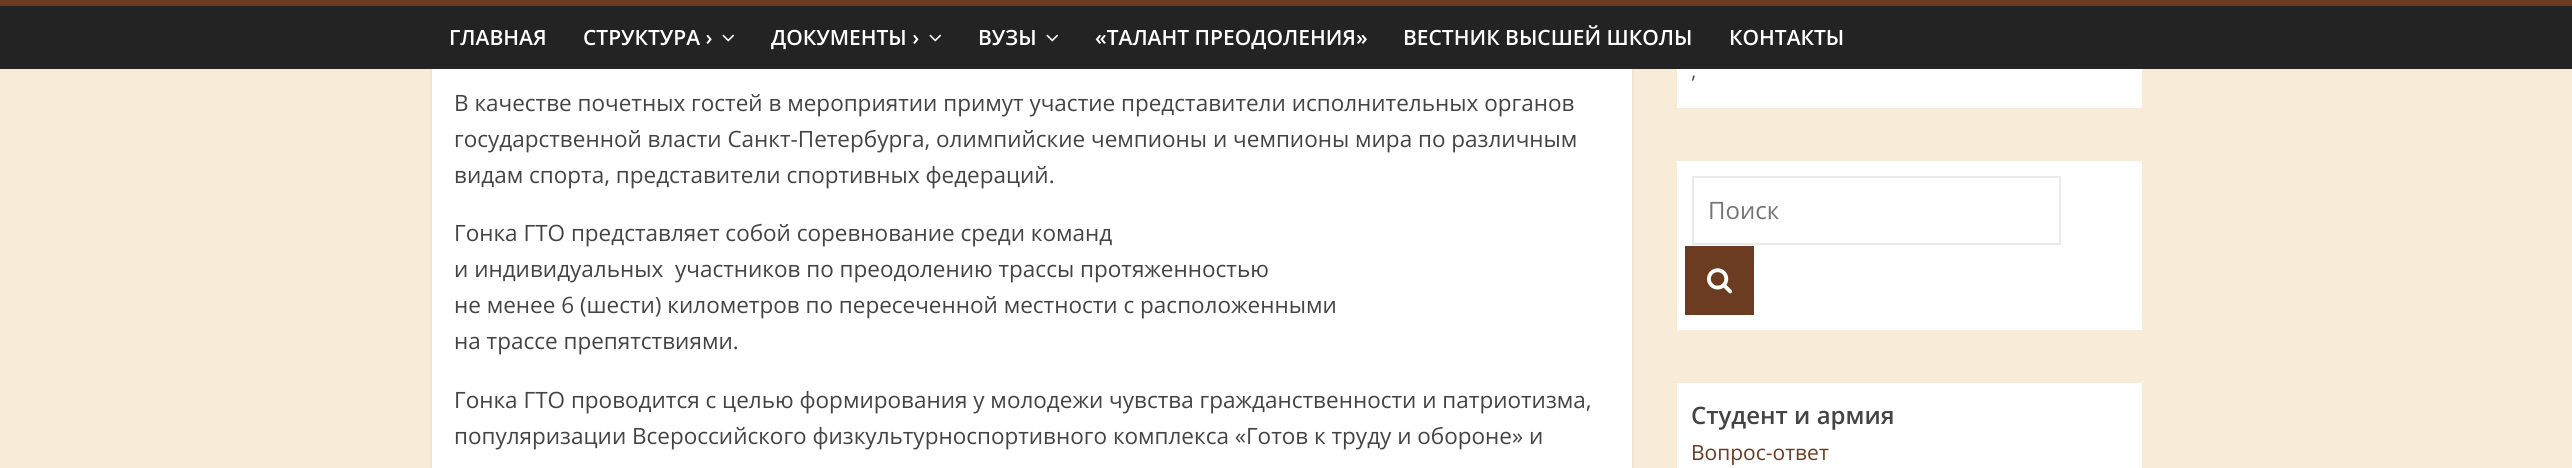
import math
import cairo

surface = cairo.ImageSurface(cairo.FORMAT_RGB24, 2572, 468)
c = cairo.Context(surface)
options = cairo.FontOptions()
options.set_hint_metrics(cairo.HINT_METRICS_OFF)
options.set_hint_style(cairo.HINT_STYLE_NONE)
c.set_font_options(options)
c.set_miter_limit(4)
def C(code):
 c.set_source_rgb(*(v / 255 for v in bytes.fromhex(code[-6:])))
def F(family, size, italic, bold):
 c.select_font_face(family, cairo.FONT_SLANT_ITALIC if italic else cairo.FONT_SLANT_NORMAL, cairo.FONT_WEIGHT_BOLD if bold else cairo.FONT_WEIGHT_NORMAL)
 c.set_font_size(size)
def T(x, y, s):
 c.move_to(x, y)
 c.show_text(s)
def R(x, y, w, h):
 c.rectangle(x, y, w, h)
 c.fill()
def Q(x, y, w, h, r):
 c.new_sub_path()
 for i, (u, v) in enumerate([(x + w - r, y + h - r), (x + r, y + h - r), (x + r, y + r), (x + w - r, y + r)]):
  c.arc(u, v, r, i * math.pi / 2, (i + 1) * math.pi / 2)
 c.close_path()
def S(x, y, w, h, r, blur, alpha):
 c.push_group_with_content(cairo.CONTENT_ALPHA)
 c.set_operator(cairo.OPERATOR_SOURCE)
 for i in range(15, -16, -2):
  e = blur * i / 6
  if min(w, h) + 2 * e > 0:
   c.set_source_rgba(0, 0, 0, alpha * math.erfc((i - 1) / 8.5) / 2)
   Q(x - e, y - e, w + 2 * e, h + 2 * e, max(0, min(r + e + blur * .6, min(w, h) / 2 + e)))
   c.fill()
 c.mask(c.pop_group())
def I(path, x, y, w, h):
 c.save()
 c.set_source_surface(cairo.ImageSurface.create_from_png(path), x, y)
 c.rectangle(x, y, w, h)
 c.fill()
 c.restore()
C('f8ecd9')
c.paint()
C('000000')
S(432,-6,1200,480,0,2,.1)
C('232323')
R(0,6,2572,63)
C('6c3c22')
R(0,0,2572,6)
F('Open Sans SemiBold',21,0,0)
C('ffffff')
T(449,45,'ГЛАВНАЯ')
T(583,45,'СТРУКТУРА ›')
I('1.png',722,34,13,8)
T(771,45,'ДОКУМЕНТЫ ›')
I('1.png',929,34,13,8)
T(978,45,'ВУЗЫ')
I('1.png',1046,34,13,8)
T(1095,45,'«ТАЛАНТ ПРЕОДОЛЕНИЯ»')
T(1403,45,'ВЕСТНИК ВЫСШЕЙ ШКОЛЫ')
T(1729,45,'КОНТАКТЫ')
R(432,69,1200,399)
F('Open Sans',22.5,0,0)
C('444444')
T(454,111,'В качестве почетных гостей в мероприятии примут участие представители исполнительных органов')
T(454,147,'государственной власти Санкт-Петербурга, олимпийские чемпионы и чемпионы мира по различным')
T(454,183,'видам спорта, представители спортивных федераций.')
T(454,241,'Гонка ГТО представляет собой соревнование среди команд')
T(454,277,'и индивидуальных  участников по преодолению трассы протяженностью')
T(454,313,'не менее 6 (шести) километров по пересеченной местности с расположенными')
T(454,349,'на трассе препятствиями.')
T(454,408,'Гонка ГТО проводится с целью формирования у молодежи чувства гражданственности и патриотизма,')
T(454,444,'популяризации Всероссийского физкультурноспортивного комплекса «Готов к труду и обороне» и')
C('ffffff')
R(1677,69,465,39)
F('Open Sans',21,0,0)
C('555555')
T(1691,78,',')
C('ffffff')
R(1677,161,465,169)
c.rectangle(1693,177,367,67)
C('eaeaea')
c.stroke()
F('Open Sans',24,0,0)
C('757575')
T(1708,219,'Поиск')
C('6c3c22')
R(1685,246,69,69)
I('2.png',1707,268,26,26)
C('ffffff')
R(1677,383,465,85)
F('Open Sans SemiBold',24,0,0)
C('444444')
T(1691,424,'Студент и армия')
F('Open Sans',21,0,0)
C('6c3c22')
T(1691,460,'Вопрос-ответ')
surface.write_to_png('o.png')
